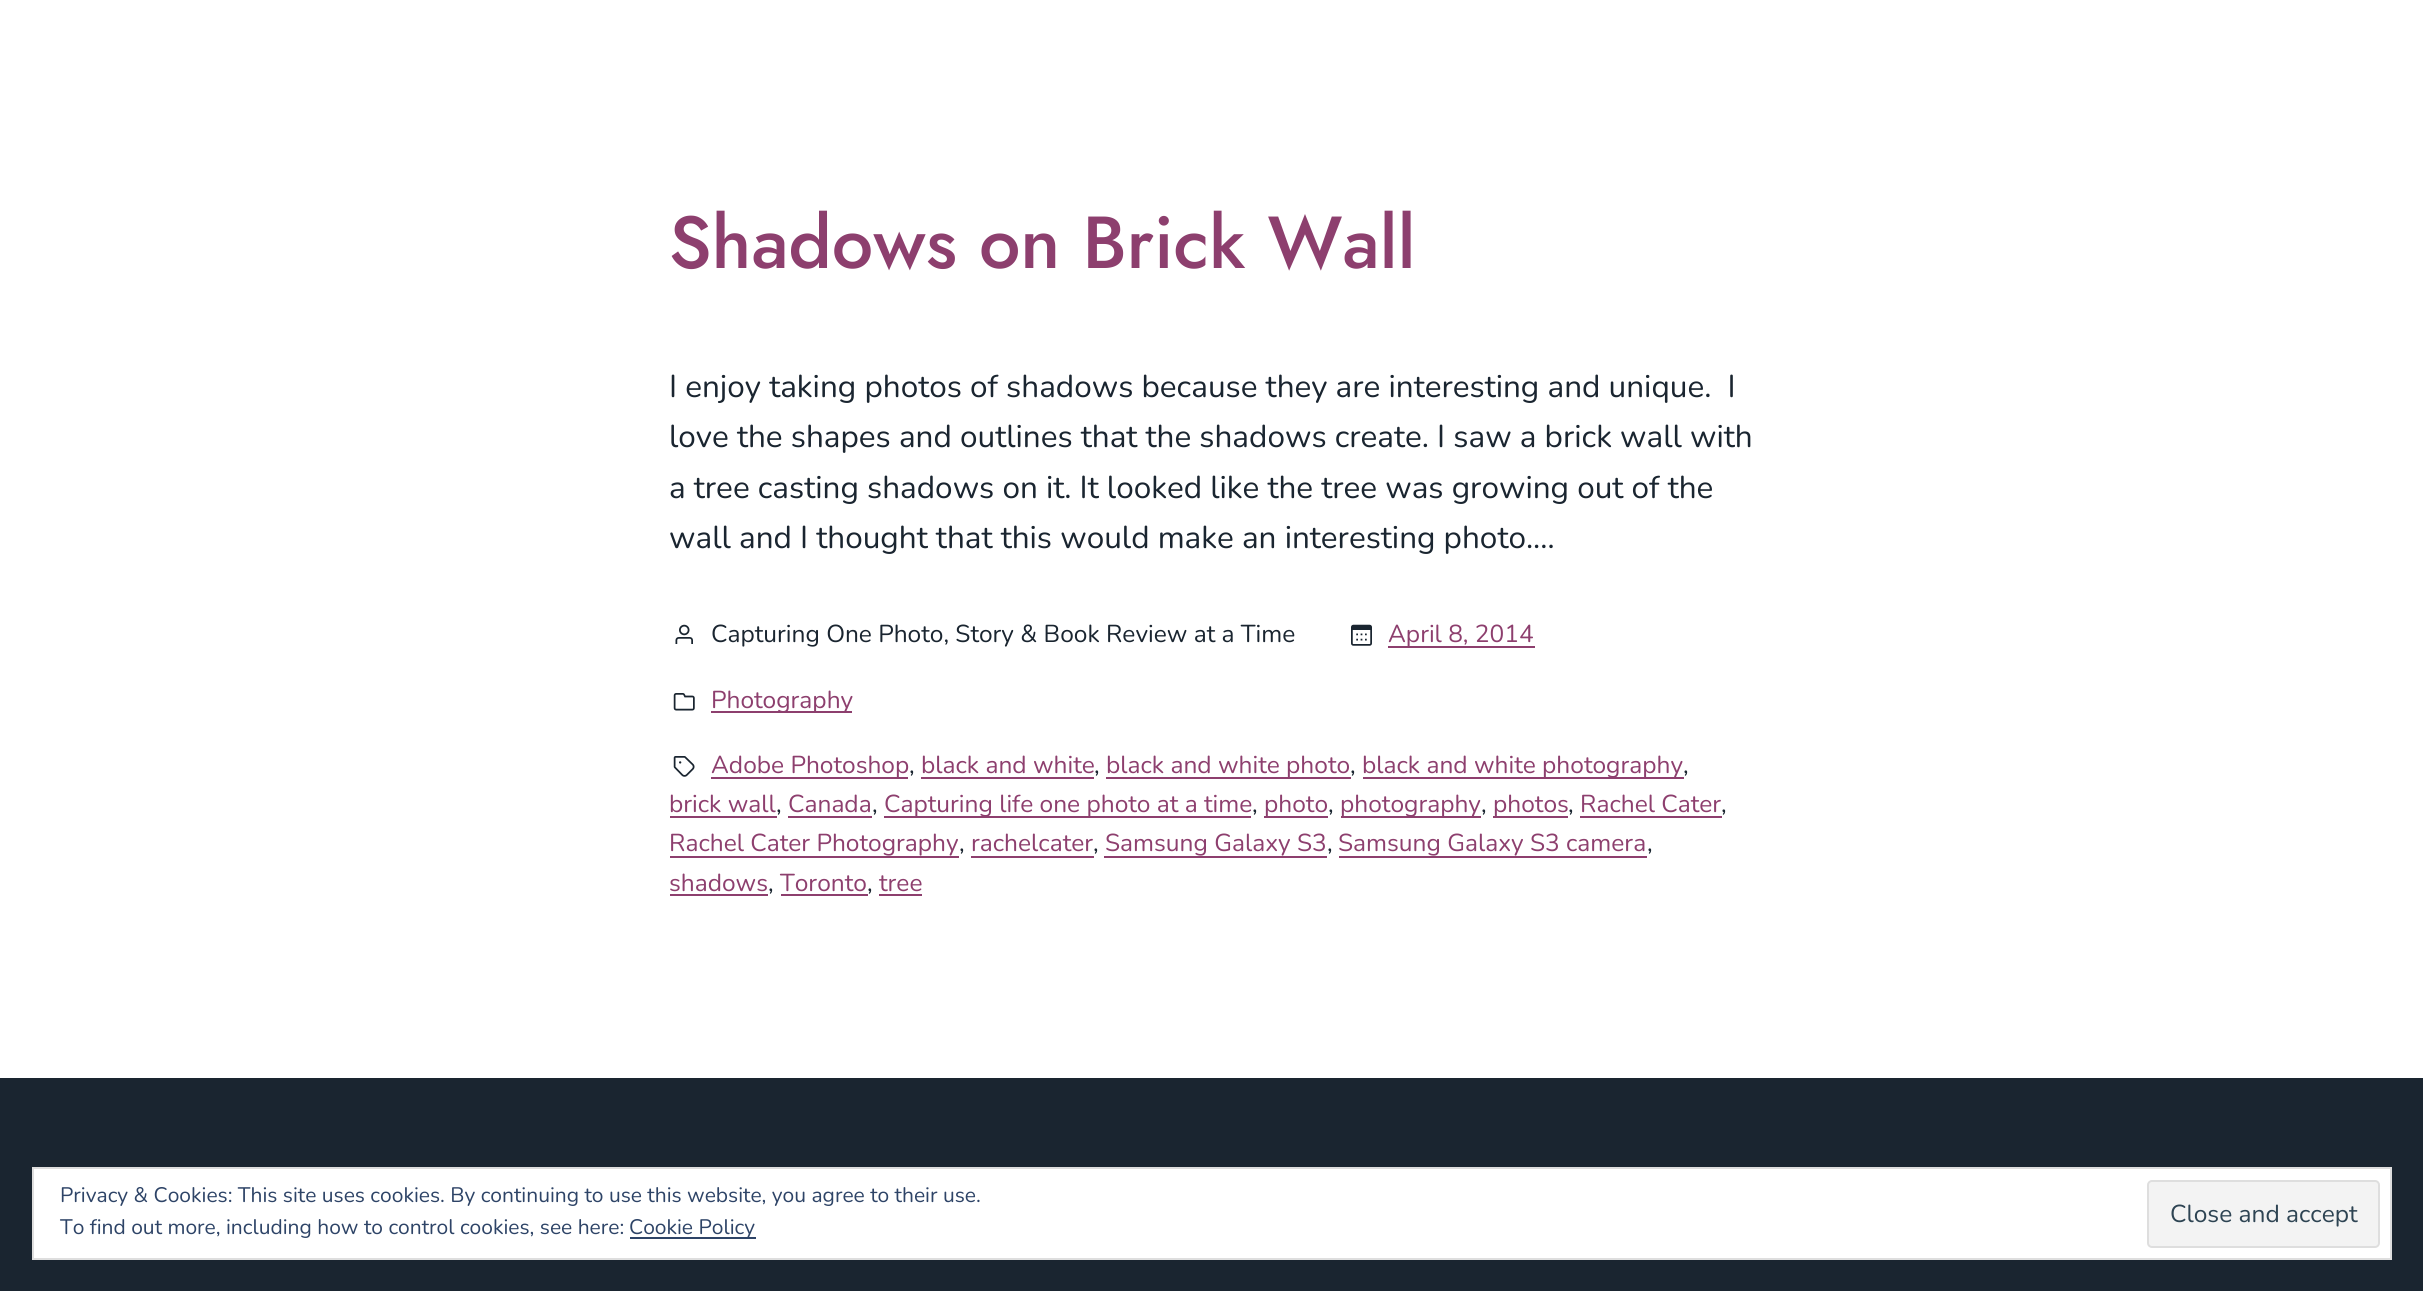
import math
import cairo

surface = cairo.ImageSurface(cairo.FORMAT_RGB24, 2423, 1291)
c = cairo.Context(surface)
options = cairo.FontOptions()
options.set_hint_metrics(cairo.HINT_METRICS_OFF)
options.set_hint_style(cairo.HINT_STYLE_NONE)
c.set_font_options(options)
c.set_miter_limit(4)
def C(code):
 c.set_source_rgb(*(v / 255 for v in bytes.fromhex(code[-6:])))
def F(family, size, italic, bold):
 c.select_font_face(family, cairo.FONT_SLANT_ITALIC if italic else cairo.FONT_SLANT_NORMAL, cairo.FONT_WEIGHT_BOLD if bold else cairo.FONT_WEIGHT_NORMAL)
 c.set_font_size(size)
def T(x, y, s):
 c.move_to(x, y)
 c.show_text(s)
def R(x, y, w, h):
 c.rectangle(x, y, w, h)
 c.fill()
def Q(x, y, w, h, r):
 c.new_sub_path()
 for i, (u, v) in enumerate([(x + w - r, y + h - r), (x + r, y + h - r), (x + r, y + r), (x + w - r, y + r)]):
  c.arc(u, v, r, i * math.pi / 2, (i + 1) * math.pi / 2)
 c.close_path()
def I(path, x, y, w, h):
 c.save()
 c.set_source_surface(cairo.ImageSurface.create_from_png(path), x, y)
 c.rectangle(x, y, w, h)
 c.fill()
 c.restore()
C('ffffff')
c.paint()
F('Jost Medium',73.5,0,0)
C('8d3f6e')
T(669,268,'Shadows on Brick Wall')
F('Nunito',31.5,0,0)
C('1a2530')
T(669,397,'I enjoy taking photos of shadows because they are interesting and unique.  I')
T(669,447,'love the shapes and outlines that the shadows create. I saw a brick wall with')
T(669,498,'a tree casting shadows on it. It looked like the tree was growing out of the')
T(669,548,'wall and I thought that this would make an interesting photo.…')
I('1.png',675,624,18,20)
F('Nunito',24.5,0,0)
T(711,642,'Capturing One Photo, Story & Book Review at a Time')
I('2.png',1351,624,21,22)
C('8d3f6e')
R(1388,646,147,2)
T(1388,642,'April 8, 2014')
I('3.png',673,693,22,18)
R(711,711,141,2)
T(711,708,'Photography')
I('4.png',673,756,22,21)
R(711,777,197,2)
T(711,773,'Adobe Photoshop')
C('1a2530')
T(909,773,',')
C('8d3f6e')
T(921,773,'black and white')
R(921,777,173,2)
C('1a2530')
T(1094,773,',')
C('8d3f6e')
R(1106,777,245,2)
T(1106,773,'black and white photo')
C('1a2530')
T(1350,773,',')
C('8d3f6e')
R(1363,777,321,2)
T(1362,773,'black and white photography')
C('1a2530')
T(1683,773,',')
C('8d3f6e')
T(669,812,'brick wall')
R(670,816,107,2)
C('1a2530')
T(776,812,',')
C('8d3f6e')
T(788,812,'Canada')
R(788,816,84,2)
C('1a2530')
T(872,812,',')
C('8d3f6e')
R(884,816,367,2)
T(884,812,'Capturing life one photo at a time')
C('1a2530')
T(1252,812,',')
C('8d3f6e')
R(1264,816,64,2)
T(1264,812,'photo')
C('1a2530')
T(1328,812,',')
C('8d3f6e')
R(1341,816,140,2)
T(1340,812,'photography')
C('1a2530')
T(1481,812,',')
C('8d3f6e')
R(1493,816,75,2)
T(1493,812,'photos')
C('1a2530')
T(1568,812,',')
C('8d3f6e')
T(1580,812,'Rachel Cater')
R(1580,816,142,2)
C('1a2530')
T(1721,812,',')
C('8d3f6e')
T(669,851,'Rachel Cater Photography')
R(670,856,289,2)
C('1a2530')
T(959,851,',')
C('8d3f6e')
T(971,851,'rachelcater')
R(971,856,123,2)
C('1a2530')
T(1093,851,',')
C('8d3f6e')
T(1105,851,'Samsung Galaxy S3')
R(1104,856,223,2)
C('1a2530')
T(1327,851,',')
C('8d3f6e')
T(1338,851,'Samsung Galaxy S3 camera')
R(1339,856,308,2)
C('1a2530')
T(1647,851,',')
C('8d3f6e')
T(669,891,'shadows')
R(670,894,98,2)
C('1a2530')
T(768,891,',')
C('8d3f6e')
T(780,891,'Toronto')
R(781,894,87,2)
C('1a2530')
T(867,891,',')
C('8d3f6e')
T(879,891,'tree')
R(879,894,43,2)
C('1a2530')
R(0,1078,2423,213)
C('ffffff')
c.rectangle(33,1168,2358,91)
c.fill_preserve()
C('dedede')
c.stroke()
F('Nunito',21,0,0)
C('2e4467')
T(60,1202,'Privacy & Cookies: This site uses cookies. By continuing to use this website, you agree to their use.')
T(60,1234,'To find out more, including how to control cookies, see here:')
R(630,1237,126,2)
T(629,1234,'Cookie Policy')
C('f3f3f3')
Q(2148,1181,231,66,4)
c.fill_preserve()
C('dedede')
c.stroke()
F('Nunito',24.5,0,0)
C('2e4453')
T(2170,1222,'Close and accept')
surface.write_to_png('o.png')
